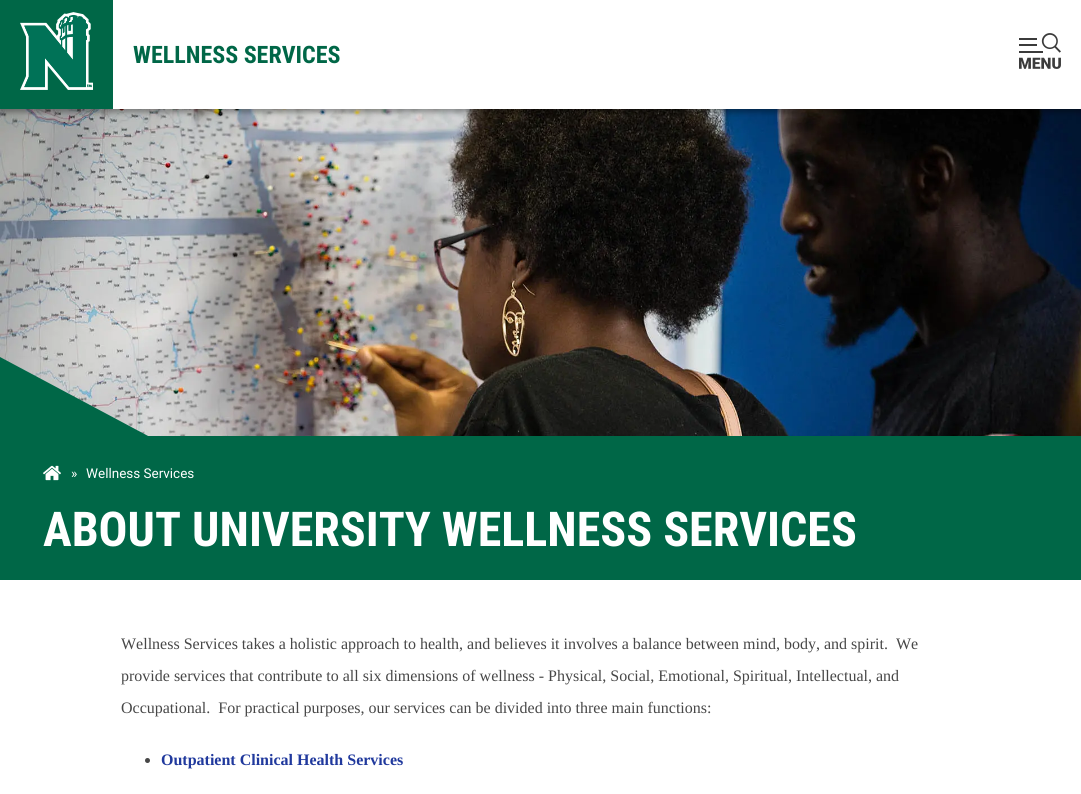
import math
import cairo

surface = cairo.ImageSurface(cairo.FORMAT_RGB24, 1081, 794)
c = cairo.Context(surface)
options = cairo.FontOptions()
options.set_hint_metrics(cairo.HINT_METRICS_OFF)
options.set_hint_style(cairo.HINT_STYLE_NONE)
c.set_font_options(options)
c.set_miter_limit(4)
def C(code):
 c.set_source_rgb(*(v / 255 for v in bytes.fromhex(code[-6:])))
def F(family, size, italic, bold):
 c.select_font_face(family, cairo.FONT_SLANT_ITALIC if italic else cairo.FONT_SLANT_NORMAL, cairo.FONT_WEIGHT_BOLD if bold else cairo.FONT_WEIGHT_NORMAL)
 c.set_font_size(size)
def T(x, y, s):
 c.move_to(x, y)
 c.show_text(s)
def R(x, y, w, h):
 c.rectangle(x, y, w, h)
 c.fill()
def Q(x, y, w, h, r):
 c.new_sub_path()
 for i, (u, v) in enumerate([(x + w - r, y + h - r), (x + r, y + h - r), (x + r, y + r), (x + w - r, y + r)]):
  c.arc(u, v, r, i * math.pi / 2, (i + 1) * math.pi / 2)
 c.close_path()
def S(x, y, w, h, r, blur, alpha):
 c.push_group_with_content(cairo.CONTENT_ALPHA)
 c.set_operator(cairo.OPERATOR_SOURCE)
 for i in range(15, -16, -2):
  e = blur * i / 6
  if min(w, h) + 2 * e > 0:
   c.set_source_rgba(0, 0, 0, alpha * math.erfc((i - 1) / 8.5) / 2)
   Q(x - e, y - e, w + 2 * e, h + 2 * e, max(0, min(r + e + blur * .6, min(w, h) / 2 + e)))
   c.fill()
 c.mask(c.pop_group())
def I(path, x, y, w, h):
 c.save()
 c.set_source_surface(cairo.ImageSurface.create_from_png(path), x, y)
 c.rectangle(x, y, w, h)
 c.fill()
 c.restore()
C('ffffff')
c.paint()
I('3.png',0,109,1081,327)
C('000000')
S(0,3,1081,109,0,3,.23)
S(0,3,1081,109,0,3,.16)
C('ffffff')
R(113,0,968,109)
C('006747')
R(0,0,113,109)
I('1.png',20,12,73,78)
F('Roboto Condensed',24,0,1)
T(133,63,'WELLNESS SERVICES')
I('2.png',1019,33,42,36)
R(0,436,1081,144)
c.new_path()
c.move_to(0,357)
c.line_to(0,437)
c.line_to(150,437)
c.close_path()
c.fill()
I('4.png',43,465,18,16)
F('Roboto',13.5,0,0)
C('ffffff')
T(71,478,'»')
T(86,478,'Wellness Services')
F('Roboto Condensed',48,0,1)
T(43,546,'ABOUT UNIVERSITY WELLNESS SERVICES')
F('Liberation Serif',16,0,0)
C('474747')
T(121,649,'Wellness Services takes a holistic approach to health, and believes it involves a balance between mind, body, and spirit.  We')
T(121,681,'provide services that contribute to all six dimensions of wellness - Physical, Social, Emotional, Spiritual, Intellectual, and')
T(121,713,'Occupational.  For practical purposes, our services can be divided into three main functions:')
c.new_path()
c.arc(147.5,760.5,2.5,0,2 * math.pi)
c.fill()
F('Liberation Serif',16,0,1)
C('20399d')
T(161,765,'Outpatient Clinical Health Services')
surface.write_to_png('o.png')
